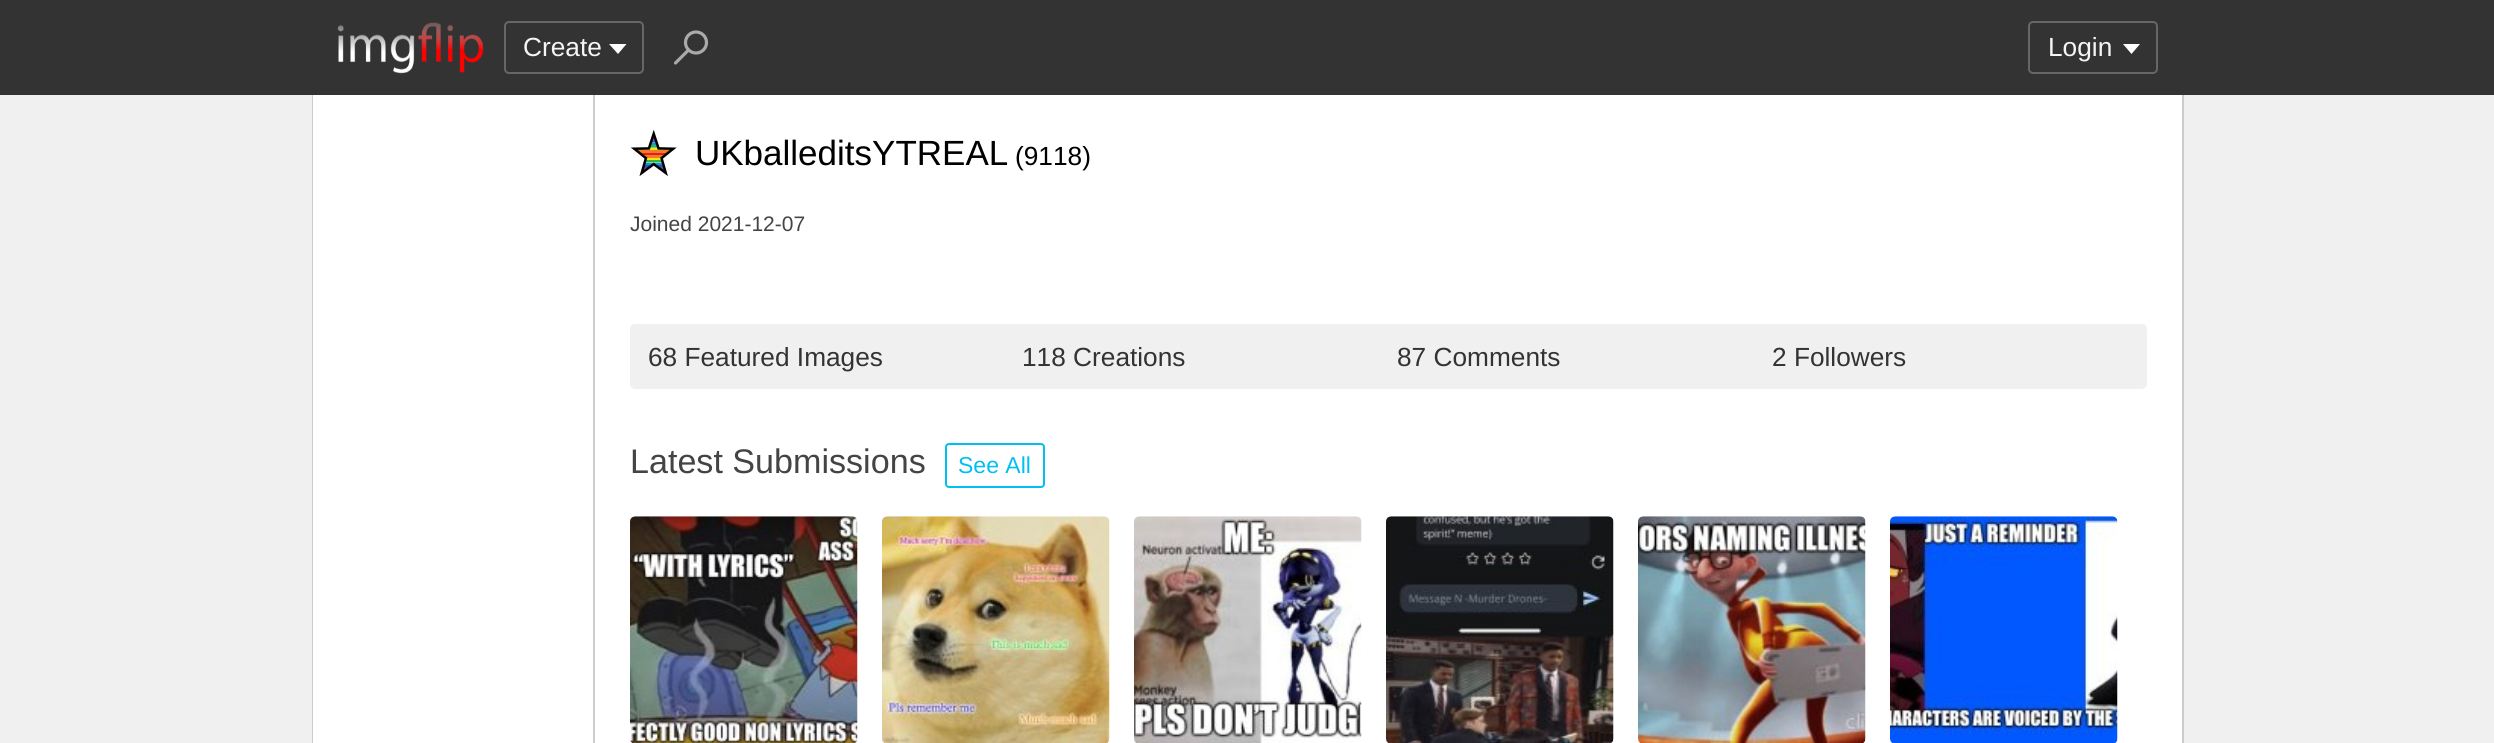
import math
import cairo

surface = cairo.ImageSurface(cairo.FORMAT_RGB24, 2494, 743)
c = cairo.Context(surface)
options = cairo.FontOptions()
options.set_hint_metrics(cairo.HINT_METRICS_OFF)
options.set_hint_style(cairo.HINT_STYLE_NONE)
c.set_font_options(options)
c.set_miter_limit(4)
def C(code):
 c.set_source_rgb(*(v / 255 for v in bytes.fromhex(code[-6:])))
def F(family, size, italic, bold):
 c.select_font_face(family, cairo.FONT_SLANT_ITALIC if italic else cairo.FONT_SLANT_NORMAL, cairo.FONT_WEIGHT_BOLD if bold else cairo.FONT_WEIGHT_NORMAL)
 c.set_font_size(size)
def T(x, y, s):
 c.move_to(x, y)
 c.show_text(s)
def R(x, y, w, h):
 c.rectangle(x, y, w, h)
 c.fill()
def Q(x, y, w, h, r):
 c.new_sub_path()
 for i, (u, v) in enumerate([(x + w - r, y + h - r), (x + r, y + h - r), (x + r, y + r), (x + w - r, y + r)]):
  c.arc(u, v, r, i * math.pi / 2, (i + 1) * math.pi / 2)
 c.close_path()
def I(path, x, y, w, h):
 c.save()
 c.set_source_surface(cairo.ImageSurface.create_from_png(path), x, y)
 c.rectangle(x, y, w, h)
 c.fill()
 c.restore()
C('f0f0f0')
c.paint()
C('ffffff')
R(313,95,1869,648)
C('cccccc')
c.set_fill_rule(cairo.FILL_RULE_EVEN_ODD)
c.new_path()
c.move_to(312,94)
c.line_to(2184,94)
c.line_to(2184,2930)
c.curve_to(2184,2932,2182,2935,2179,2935)
c.line_to(317,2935)
c.curve_to(314,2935,312,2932,312,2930)
c.close_path()
c.move_to(313,94)
c.line_to(2182,94)
c.line_to(2182,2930)
c.curve_to(2182,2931,2181,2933,2179,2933)
c.line_to(317,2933)
c.curve_to(315,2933,313,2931,313,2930)
c.close_path()
c.fill()
C('333333')
R(0,0,2494,95)
I('1.png',337,22,147,52)
Q(505,22,138,51,4)
C('666666')
c.stroke()
F('Liberation Sans',26.25,0,0)
C('f5f5f5')
T(523,56,'Create')
C('ffffff')
c.set_fill_rule(cairo.FILL_RULE_WINDING)
c.new_path()
c.move_to(609,44)
c.line_to(626.5,44)
c.line_to(618,54)
c.close_path()
c.fill()
c.new_path()
c.move_to(675.5,63)
c.line_to(688.5,50)
C('aaaaaa')
c.set_line_width(3.2)
c.set_line_cap(cairo.LINE_CAP_ROUND)
c.stroke()
c.arc(696,42.5,10.5,0,2 * math.pi)
c.set_line_cap(cairo.LINE_CAP_BUTT)
c.stroke()
Q(2029,22,128,51,4)
C('666666')
c.set_line_width(2)
c.stroke()
C('f5f5f5')
T(2048,56,'Login')
C('ffffff')
c.new_path()
c.move_to(2123,44)
c.line_to(2140,44)
c.line_to(2131.5,54)
c.close_path()
c.fill()
C('cccccc')
R(593,95,2,648)
I('2.png',630,130,47,46)
F('Liberation Sans',35,0,0)
C('000000')
T(695,165,'UKballeditsYTREAL')
F('Liberation Sans',26.25,0,0)
T(1015,165,'(9118)')
F('Liberation Sans',21,0,0)
C('444444')
T(630,231,'Joined 2021-12-07')
C('f0f0f0')
Q(630,324,1517,65,5)
c.fill()
F('Liberation Sans',26.25,0,0)
C('333333')
T(648,366,'68 Featured Images')
T(1022,366,'118 Creations')
T(1397,366,'87 Comments')
T(1772,366,'2 Followers')
F('Liberation Sans',34.1,0,0)
C('444444')
T(630,473,'Latest Submissions')
Q(946,444,98,43,3)
C('00bff3')
c.stroke()
F('Liberation Sans',23,0,0)
T(958,473,'See All')
I('3.png',630,516,228,227)
I('4.png',882,516,228,227)
I('5.png',1134,516,228,227)
I('6.png',1386,516,228,227)
I('7.png',1638,516,228,227)
I('8.png',1890,516,228,227)
surface.write_to_png('o.png')
